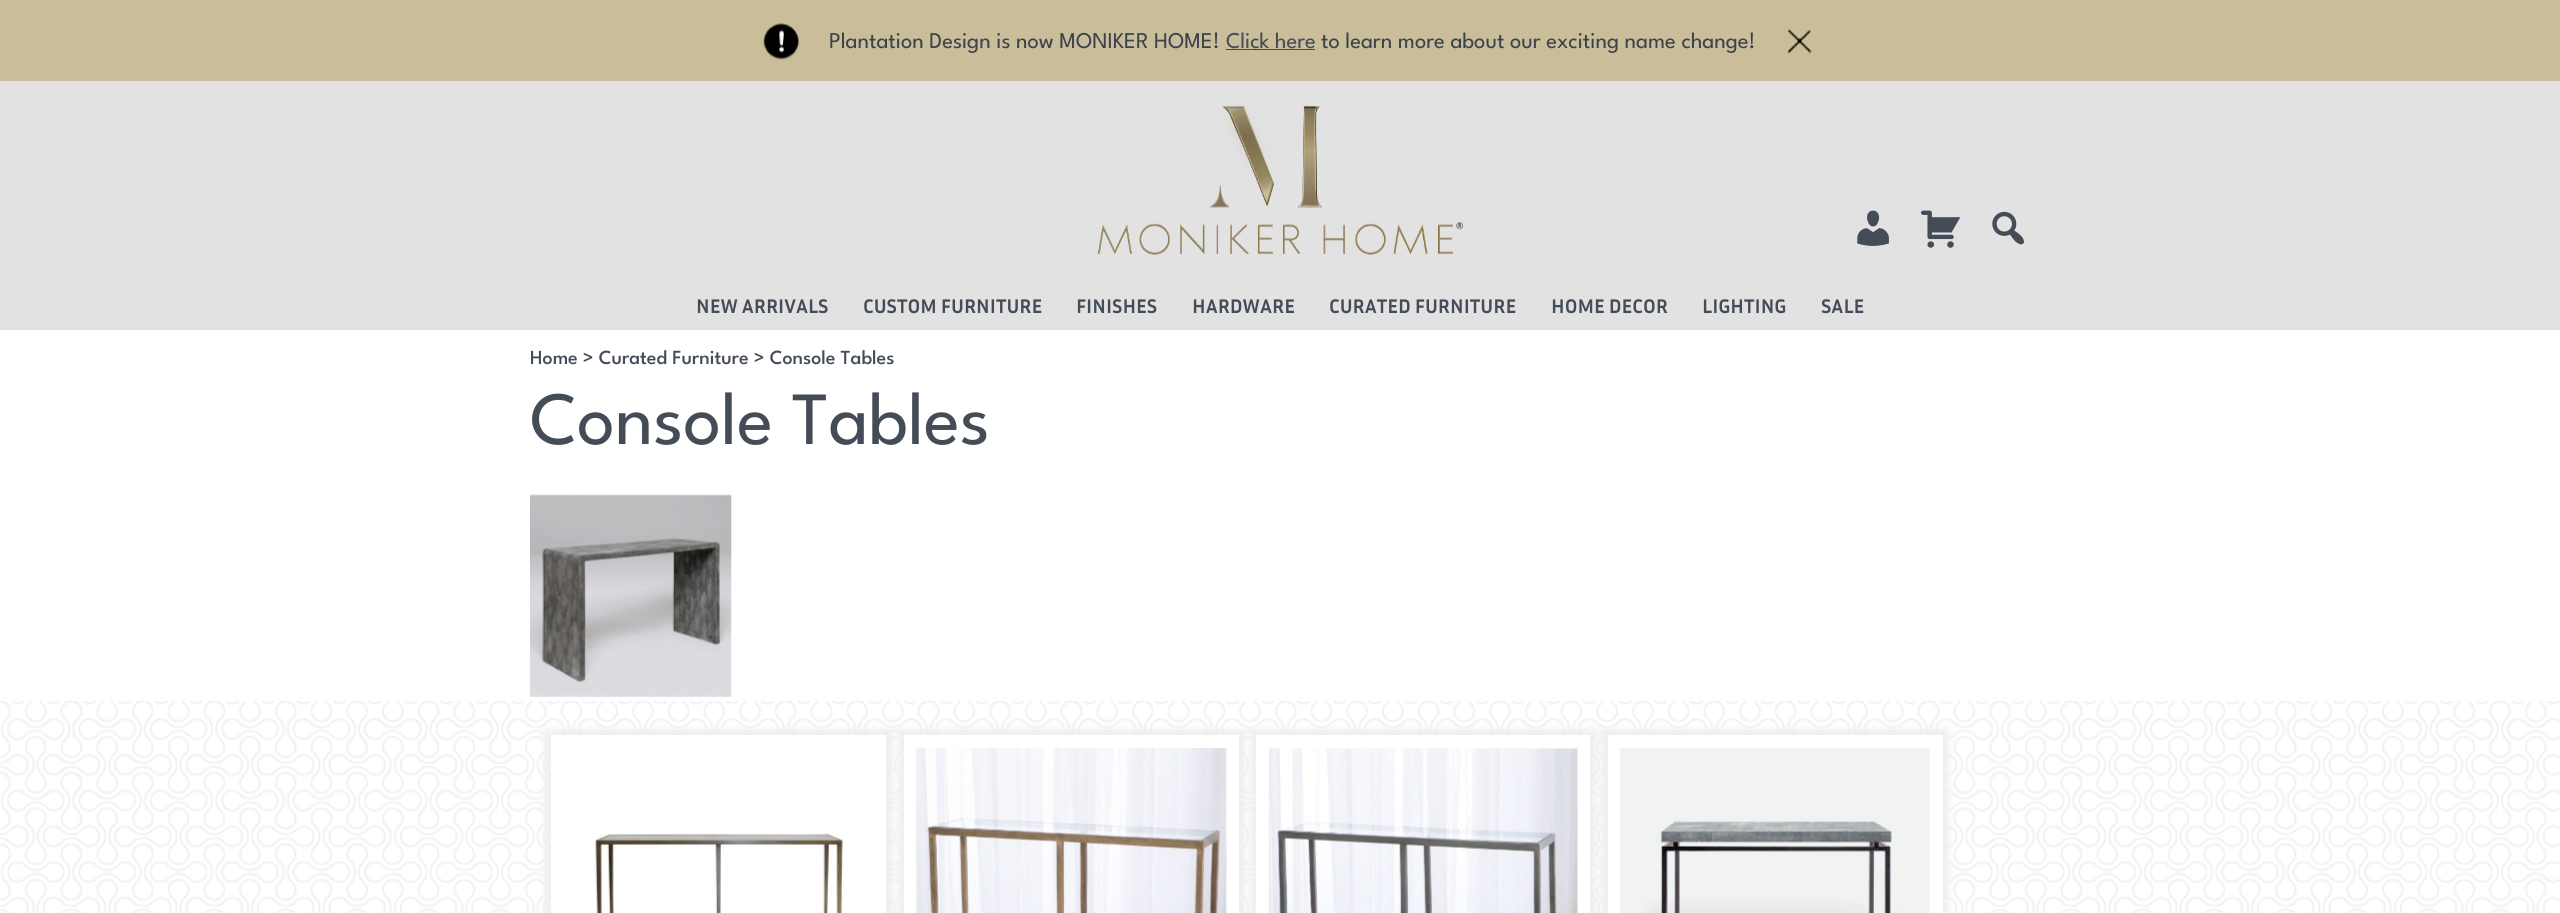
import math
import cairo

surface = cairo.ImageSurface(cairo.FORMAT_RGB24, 2560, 913)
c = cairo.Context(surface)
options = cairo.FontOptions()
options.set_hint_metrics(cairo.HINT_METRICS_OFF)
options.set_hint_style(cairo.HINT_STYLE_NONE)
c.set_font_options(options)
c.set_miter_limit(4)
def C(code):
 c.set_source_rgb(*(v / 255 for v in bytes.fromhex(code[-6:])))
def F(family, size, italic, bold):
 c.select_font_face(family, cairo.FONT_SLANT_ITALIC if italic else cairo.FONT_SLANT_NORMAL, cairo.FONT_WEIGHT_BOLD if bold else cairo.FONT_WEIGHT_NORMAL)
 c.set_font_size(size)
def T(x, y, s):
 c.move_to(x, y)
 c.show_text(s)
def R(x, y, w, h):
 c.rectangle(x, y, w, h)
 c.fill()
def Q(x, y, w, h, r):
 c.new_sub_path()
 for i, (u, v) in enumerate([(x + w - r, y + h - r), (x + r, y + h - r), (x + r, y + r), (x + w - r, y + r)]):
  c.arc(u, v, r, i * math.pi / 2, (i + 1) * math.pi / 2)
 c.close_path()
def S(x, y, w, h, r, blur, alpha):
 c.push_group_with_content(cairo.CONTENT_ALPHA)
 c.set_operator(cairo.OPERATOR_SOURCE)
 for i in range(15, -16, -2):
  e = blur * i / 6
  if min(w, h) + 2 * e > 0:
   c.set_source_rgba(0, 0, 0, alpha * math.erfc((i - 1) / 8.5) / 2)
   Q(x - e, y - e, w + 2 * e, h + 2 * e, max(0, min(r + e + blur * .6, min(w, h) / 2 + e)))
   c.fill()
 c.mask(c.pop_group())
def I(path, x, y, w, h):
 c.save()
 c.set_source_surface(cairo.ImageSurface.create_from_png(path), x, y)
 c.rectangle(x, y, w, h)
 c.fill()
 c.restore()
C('ffffff')
c.paint()
C('cabd9a')
R(0,0,2560,81)
I('1.png',763,23,36,37)
F('League Spartan',22.5,0,0)
C('3a424b')
T(829,48,'Plantation Design is now MONIKER HOME!')
C('444c57')
T(1226,48,'Click here')
R(1226,49,89,1)
C('3a424b')
T(1321,48,'to learn more about our exciting name change!')
I('2.png',1787,29,25,25)
C('e2e2e2')
R(0,81,2560,249)
I('3.png',1098,105,365,150)
I('4.png',1857,210,32,36)
I('5.png',1921,210,40,38)
I('6.png',1992,211,32,34)
F('Inria Sans',20,0,1)
C('444c57')
T(696,313,'NEW ARRIVALS')
T(863,313,'CUSTOM FURNITURE')
T(1076,313,'FINISHES')
T(1192,313,'HARDWARE')
T(1329,313,'CURATED FURNITURE')
T(1551,313,'HOME DECOR')
T(1702,313,'LIGHTING')
T(1821,313,'SALE')
F('League Spartan Medium',20,0,0)
T(530,364,'Home > Curated Furniture > Console Tables')
F('League Spartan',75,0,0)
T(530,444,'Console Tables')
I('7.png',530,494,202,203)
I('8.png',0,701,2560,212)
C('efefef')
S(545,729,348,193,0,3,1)
C('ffffff')
R(551,735,335,178)
I('9.png',595,833,249,80)
C('efefef')
S(898,729,347,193,0,3,1)
C('ffffff')
R(904,735,335,178)
I('10.png',915,748,312,165)
C('efefef')
S(1250,729,346,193,0,3,1)
C('ffffff')
R(1256,735,334,178)
I('11.png',1268,748,310,165)
C('efefef')
S(1601,729,348,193,0,3,1)
C('ffffff')
R(1608,735,335,178)
I('12.png',1620,748,310,165)
surface.write_to_png('o.png')
